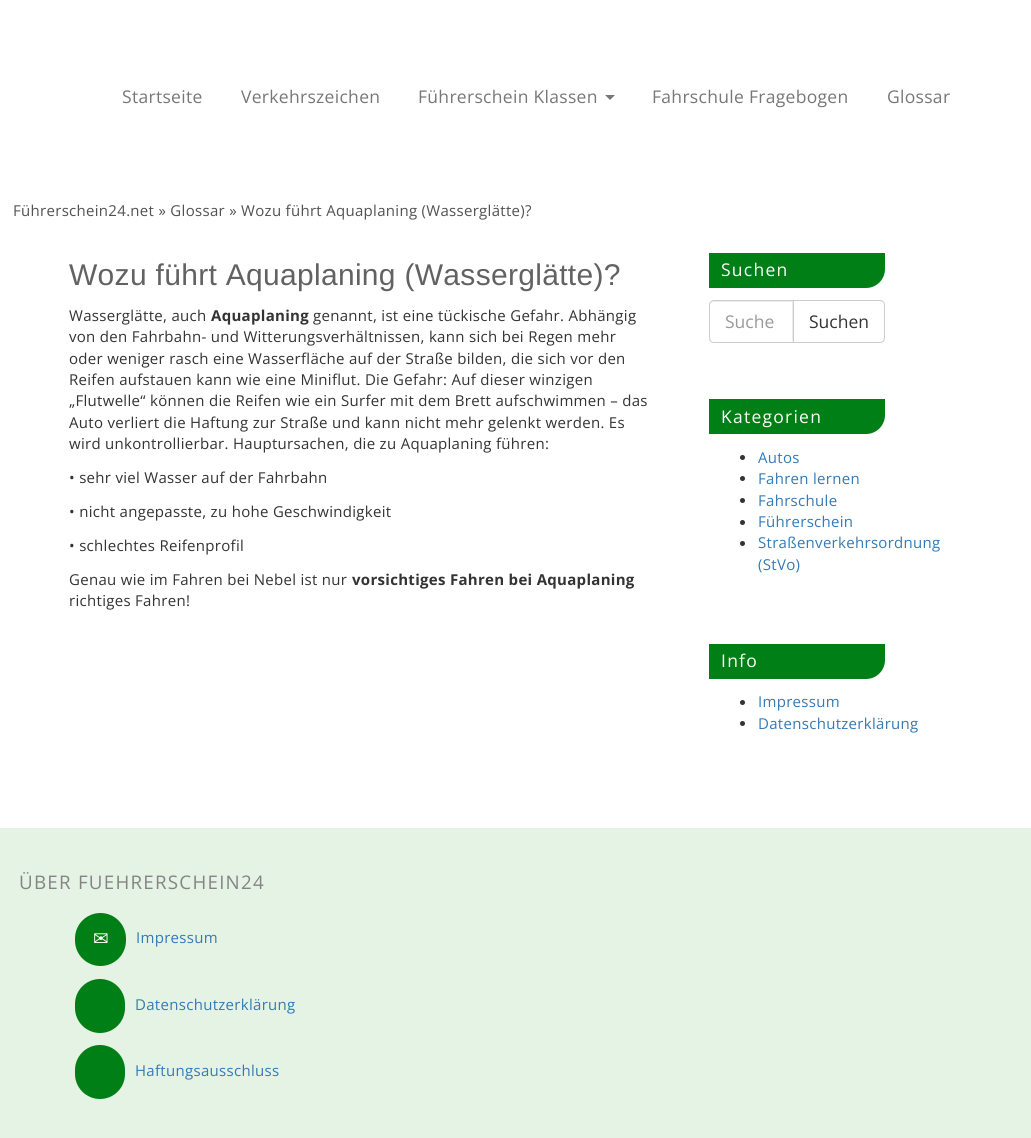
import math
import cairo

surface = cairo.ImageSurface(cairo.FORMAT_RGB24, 1031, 1138)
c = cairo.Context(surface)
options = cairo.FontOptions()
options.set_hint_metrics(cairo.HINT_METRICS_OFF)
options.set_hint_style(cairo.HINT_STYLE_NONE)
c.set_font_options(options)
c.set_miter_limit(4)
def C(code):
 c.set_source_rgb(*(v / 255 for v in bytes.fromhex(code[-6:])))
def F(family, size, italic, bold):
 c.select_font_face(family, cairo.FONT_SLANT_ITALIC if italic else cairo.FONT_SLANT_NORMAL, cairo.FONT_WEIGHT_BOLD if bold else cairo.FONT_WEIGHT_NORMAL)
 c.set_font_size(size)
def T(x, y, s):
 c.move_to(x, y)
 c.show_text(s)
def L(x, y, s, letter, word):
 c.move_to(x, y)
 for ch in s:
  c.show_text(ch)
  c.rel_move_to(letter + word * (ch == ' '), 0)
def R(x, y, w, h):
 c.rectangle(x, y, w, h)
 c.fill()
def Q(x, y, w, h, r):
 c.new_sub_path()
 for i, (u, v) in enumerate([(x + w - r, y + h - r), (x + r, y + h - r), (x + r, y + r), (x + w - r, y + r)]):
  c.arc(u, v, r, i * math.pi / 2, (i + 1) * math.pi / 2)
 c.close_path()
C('ffffff')
c.paint()
F('Open Sans',17.5,0,0)
C('777777')
L(122,103,'Startseite',.3,0)
L(241,103,'Verkehrszeichen',.3,0)
L(418,103,'Führerschein Klassen',.3,0)
c.new_path()
c.move_to(605,95)
c.line_to(615,95)
c.line_to(610,100)
c.close_path()
c.fill()
L(652,103,'Fahrschule Fragebogen',.3,0)
L(887,103,'Glossar',.3,0)
F('Open Sans',15,0,0)
C('525252')
L(13,216,'Führerschein24.net » Glossar » Wozu führt Aquaplaning (Wasserglätte)?',.3,0)
F('Liberation Sans',30,0,0)
C('626262')
L(69,285,'Wozu führt Aquaplaning (Wasserglätte)?',.3,0)
F('Open Sans',15,0,0)
C('333333')
L(69,321,'Wasserglätte, auch',.3,0)
F('Open Sans',15,0,1)
L(211,321,'Aquaplaning',.3,0)
F('Open Sans',15,0,0)
L(313,321,'genannt, ist eine tückische Gefahr. Abhängig',.3,0)
L(69,342,'von den Fahrbahn- und Witterungsverhältnissen, kann sich bei Regen mehr',.3,0)
L(69,364,'oder weniger rasch eine Wasserfläche auf der Straße bilden, die sich vor den',.3,0)
L(69,385,'Reifen aufstauen kann wie eine Miniflut. Die Gefahr: Auf dieser winzigen',.3,0)
L(69,406,'„Flutwelle“ können die Reifen wie ein Surfer mit dem Brett aufschwimmen – das',.3,0)
L(69,428,'Auto verliert die Haftung zur Straße und kann nicht mehr gelenkt werden. Es',.3,0)
L(69,449,'wird unkontrollierbar. Hauptursachen, die zu Aquaplaning führen:',.3,0)
L(69,483,'• sehr viel Wasser auf der Fahrbahn',.3,0)
L(69,517,'• nicht angepasste, zu hohe Geschwindigkeit',.3,0)
L(69,551,'• schlechtes Reifenprofil',.3,0)
L(69,585,'Genau wie im Fahren bei Nebel ist nur',.3,0)
F('Open Sans',15,0,1)
L(352,585,'vorsichtiges Fahren bei Aquaplaning',.3,0)
F('Open Sans',15,0,0)
L(69,606,'richtiges Fahren!',.3,0)
C('007f17')
c.new_path()
c.move_to(709,253)
c.line_to(885,253)
c.line_to(885,269)
c.curve_to(885,279.5,876.5,288,866,288)
c.line_to(709,288)
c.close_path()
c.fill()
F('Open Sans',17.5,0,0)
C('ffffff')
L(721,276,'Suchen',1.25,0)
C('ececec')
c.new_path()
c.move_to(714,302)
c.line_to(792,302)
c.line_to(792,341)
c.line_to(793,341)
c.line_to(793,301)
c.line_to(714,301)
c.curve_to(712,301,710,303,710,305)
c.line_to(710,306)
c.curve_to(710,304,712,302,714,302)
c.close_path()
c.fill()
c.new_path()
c.move_to(714,300.5)
c.line_to(793.5,300.5)
c.line_to(793.5,342.5)
c.line_to(714,342.5)
c.curve_to(711.5,342.5,709.5,340.5,709.5,338)
c.line_to(709.5,305)
c.curve_to(709.5,302.5,711.5,300.5,714,300.5)
c.close_path()
C('cccccc')
c.set_line_width(1)
c.stroke()
C('999999')
T(725,328,'Suche')
C('ffffff')
c.new_path()
c.move_to(793.5,300.5)
c.line_to(880,300.5)
c.curve_to(882.5,300.5,884.5,302.5,884.5,305)
c.line_to(884.5,338)
c.curve_to(884.5,340.5,882.5,342.5,880,342.5)
c.line_to(793.5,342.5)
c.close_path()
c.fill_preserve()
C('cccccc')
c.stroke()
C('333333')
T(809,328,'Suchen')
C('007f17')
c.new_path()
c.move_to(709,399)
c.line_to(885,399)
c.line_to(885,415)
c.curve_to(885,425.5,876.5,434,866,434)
c.line_to(709,434)
c.close_path()
c.fill()
C('ffffff')
L(721,423,'Kategorien',1.25,0)
C('333333')
c.new_path()
c.arc(742.5,457.5,2.5,0,2 * math.pi)
c.fill()
F('Open Sans',15,0,0)
C('337ab7')
L(758,463,'Autos',.3,0)
C('333333')
c.new_path()
c.arc(742.5,478.5,2.5,0,2 * math.pi)
c.fill()
C('337ab7')
L(758,484,'Fahren lernen',.3,0)
C('333333')
c.new_path()
c.arc(742.5,500.5,2.5,0,2 * math.pi)
c.fill()
C('337ab7')
L(758,506,'Fahrschule',.3,0)
C('333333')
c.new_path()
c.arc(742.5,522.5,2.5,0,2 * math.pi)
c.fill()
C('337ab7')
L(758,527,'Führerschein',.3,0)
C('333333')
c.new_path()
c.arc(742.5,543.5,2.5,0,2 * math.pi)
c.fill()
C('337ab7')
L(758,548,'Straßenverkehrsordnung',.3,0)
L(758,570,'(StVo)',.3,0)
C('007f17')
c.new_path()
c.move_to(709,644)
c.line_to(885,644)
c.line_to(885,660)
c.curve_to(885,670.5,876.5,679,866,679)
c.line_to(709,679)
c.close_path()
c.fill()
F('Open Sans',17.5,0,0)
C('ffffff')
L(721,667,'Info',1.25,0)
C('333333')
c.new_path()
c.arc(742.5,702.5,2.5,0,2 * math.pi)
c.fill()
F('Open Sans',15,0,0)
C('337ab7')
L(758,707,'Impressum',.3,0)
C('333333')
c.new_path()
c.arc(742.5,723.5,2.5,0,2 * math.pi)
c.fill()
C('337ab7')
L(758,729,'Datenschutzerklärung',.3,0)
C('e5f3e4')
R(0,828,1031,310)
F('Open Sans',18.75,0,0)
C('848484')
L(19,889,'ÜBER FUEHRERSCHEIN24',1.25,0)
C('007f17')
Q(75,913,51,53,25.5)
c.fill()
F('DejaVu Sans',18.75,0,0)
C('ffffff')
L(93,945,'✉',.3,0)
F('Open Sans',15,0,0)
C('337ab7')
L(136,943,'Impressum',.3,0)
C('007f17')
Q(75,979,50,54,25)
c.fill()
C('337ab7')
L(135,1010,'Datenschutzerklärung',.3,0)
C('007f17')
Q(75,1045,50,54,25)
c.fill()
C('337ab7')
L(135,1076,'Haftungsausschluss',.3,0)
surface.write_to_png('o.png')
